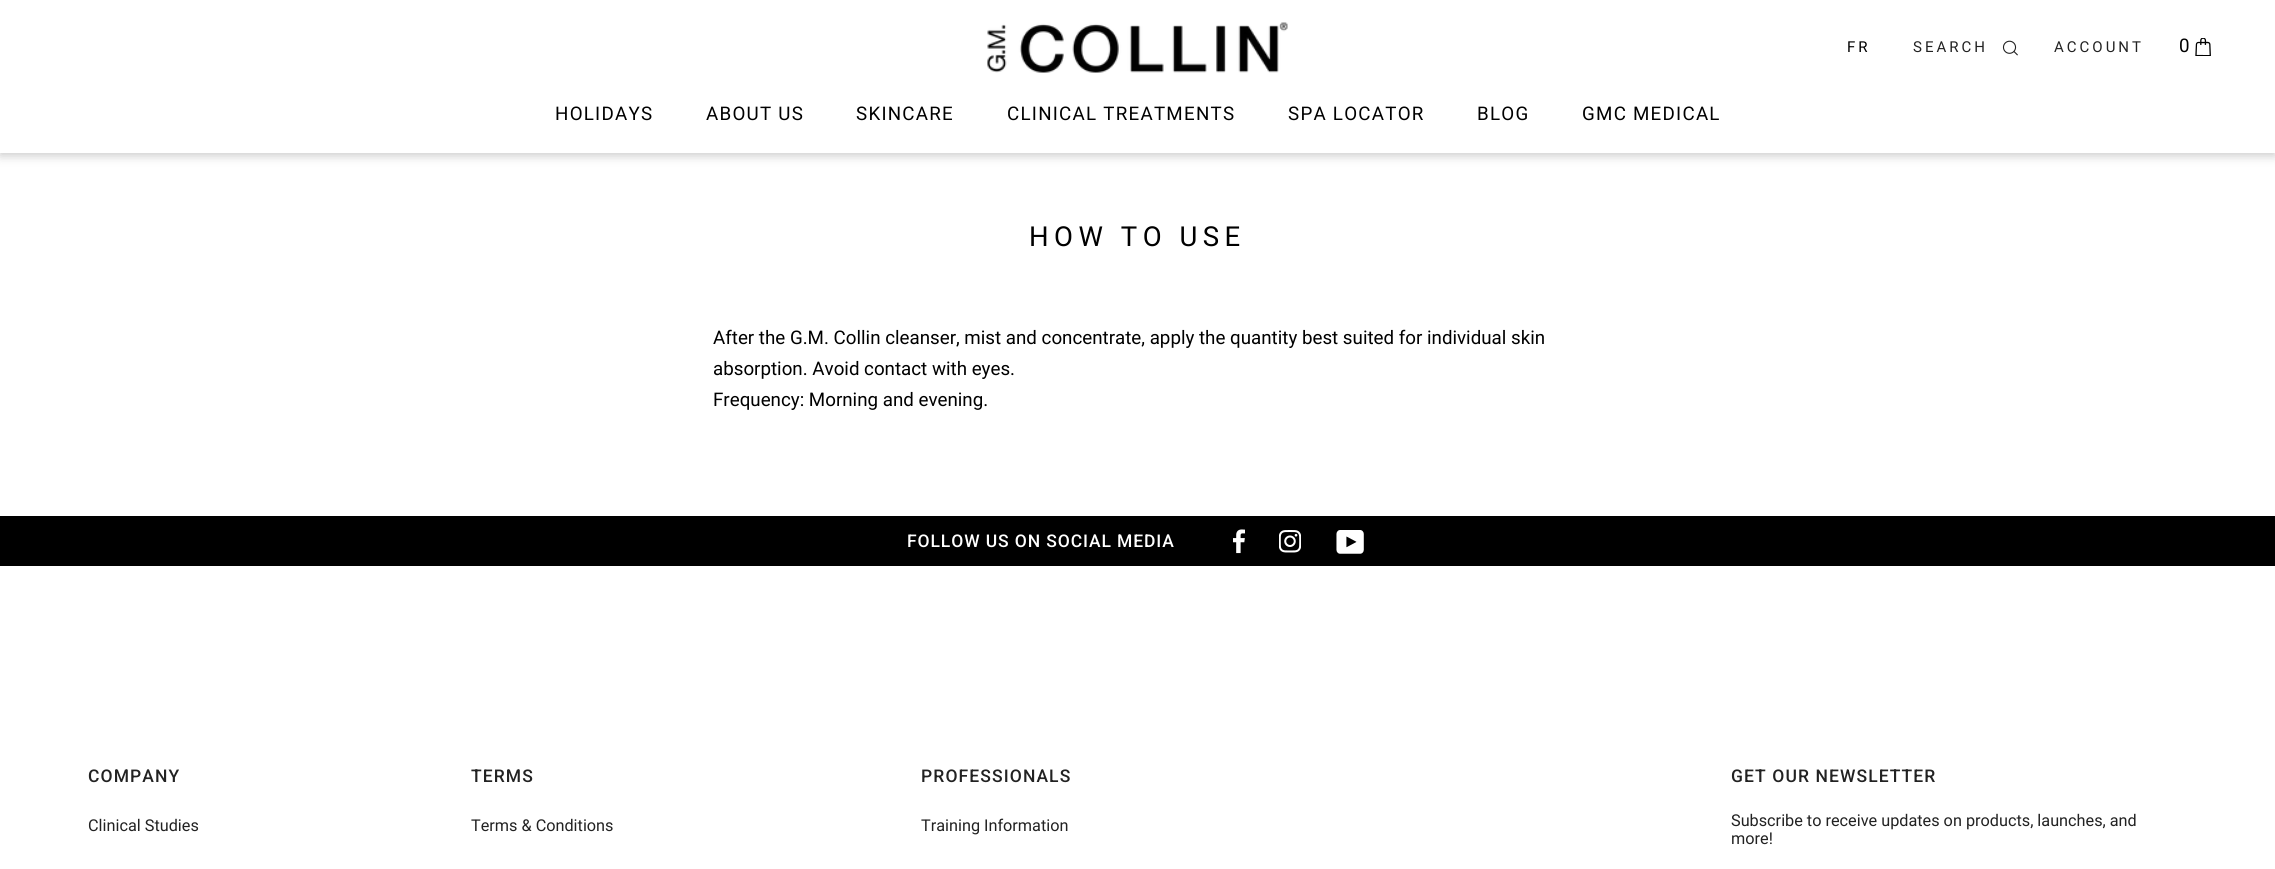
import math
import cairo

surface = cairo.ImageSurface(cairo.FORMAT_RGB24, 2275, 869)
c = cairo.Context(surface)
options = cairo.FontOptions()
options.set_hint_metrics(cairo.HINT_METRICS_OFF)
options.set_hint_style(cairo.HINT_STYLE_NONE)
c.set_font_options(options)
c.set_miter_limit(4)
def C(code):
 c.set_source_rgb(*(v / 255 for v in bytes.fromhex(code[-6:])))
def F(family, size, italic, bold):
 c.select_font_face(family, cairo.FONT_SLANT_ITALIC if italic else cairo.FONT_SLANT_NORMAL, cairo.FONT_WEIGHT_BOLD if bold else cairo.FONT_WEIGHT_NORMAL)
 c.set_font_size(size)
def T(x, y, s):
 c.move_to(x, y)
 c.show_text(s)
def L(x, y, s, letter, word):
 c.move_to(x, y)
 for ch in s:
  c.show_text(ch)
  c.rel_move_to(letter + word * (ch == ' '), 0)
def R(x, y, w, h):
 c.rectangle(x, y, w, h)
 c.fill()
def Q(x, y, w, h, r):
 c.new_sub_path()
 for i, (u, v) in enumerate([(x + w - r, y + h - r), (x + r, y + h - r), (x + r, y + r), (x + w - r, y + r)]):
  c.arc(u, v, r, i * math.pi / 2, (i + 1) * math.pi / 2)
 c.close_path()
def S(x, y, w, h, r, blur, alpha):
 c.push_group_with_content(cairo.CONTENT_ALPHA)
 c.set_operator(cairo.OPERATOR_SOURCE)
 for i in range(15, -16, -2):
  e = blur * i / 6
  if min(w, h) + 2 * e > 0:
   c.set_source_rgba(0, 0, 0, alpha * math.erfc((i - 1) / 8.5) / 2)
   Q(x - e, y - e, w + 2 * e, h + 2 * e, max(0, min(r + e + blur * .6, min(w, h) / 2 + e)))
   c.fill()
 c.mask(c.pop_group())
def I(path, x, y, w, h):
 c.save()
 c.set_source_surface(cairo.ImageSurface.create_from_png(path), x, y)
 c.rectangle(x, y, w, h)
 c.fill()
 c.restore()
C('ffffff')
c.paint()
C('000000')
S(0,4,2275,152,0,5,.2)
C('ffffff')
R(0,0,2275,153)
I('1.png',987,22,301,51)
F('Roboto',15,0,0)
C('000000')
L(1847,52,'FR',3,0)
C('222222')
L(1913,52,'SEARCH',3,0)
I('2.png',2002,40,16,16)
L(2054,52,'ACCOUNT',3,0)
F('Roboto',18.75,0,0)
C('000000')
L(2179,52,'0',4,0)
I('3.png',2195,38,16,18)
L(555,120,'HOLIDAYS',1.25,0)
L(706,120,'ABOUT US',1.25,0)
L(856,120,'SKINCARE',1.25,0)
L(1007,120,'CLINICAL TREATMENTS',1.25,0)
L(1288,120,'SPA LOCATOR',1.25,0)
L(1477,120,'BLOG',1.25,0)
L(1582,120,'GMC MEDICAL',1.25,0)
F('Roboto',27.5,0,0)
L(1029,246,'HOW TO USE',5.5,0)
F('Roboto',18.75,0,0)
T(713,344,'After the G.M. Collin cleanser, mist and concentrate, apply the quantity best suited for individual skin')
T(713,375,'absorption. Avoid contact with eyes.')
T(713,406,'Frequency: Morning and evening.')
R(0,516,2275,50)
F('Roboto Medium',17.5,0,0)
C('ffffff')
L(907,547,'FOLLOW US ON SOCIAL MEDIA',.9,0)
I('4.png',1233,529,12,25)
I('5.png',1279,530,22,23)
I('6.png',1336,530,28,24)
C('222222')
L(88,782,'COMPANY',1.1,0)
F('Roboto',16.25,0,0)
T(88,831,'Clinical Studies')
F('Roboto Medium',17.5,0,0)
L(471,782,'TERMS',1.1,0)
F('Roboto',16.25,0,0)
T(471,831,'Terms & Conditions')
F('Roboto Medium',17.5,0,0)
L(921,782,'PROFESSIONALS',1.1,0)
F('Roboto',16.25,0,0)
T(921,831,'Training Information')
F('Roboto Medium',17.5,0,0)
L(1731,782,'GET OUR NEWSLETTER',1.1,0)
F('Roboto',16.25,0,0)
T(1731,826,'Subscribe to receive updates on products, launches, and')
T(1731,844,'more!')
surface.write_to_png('o.png')
